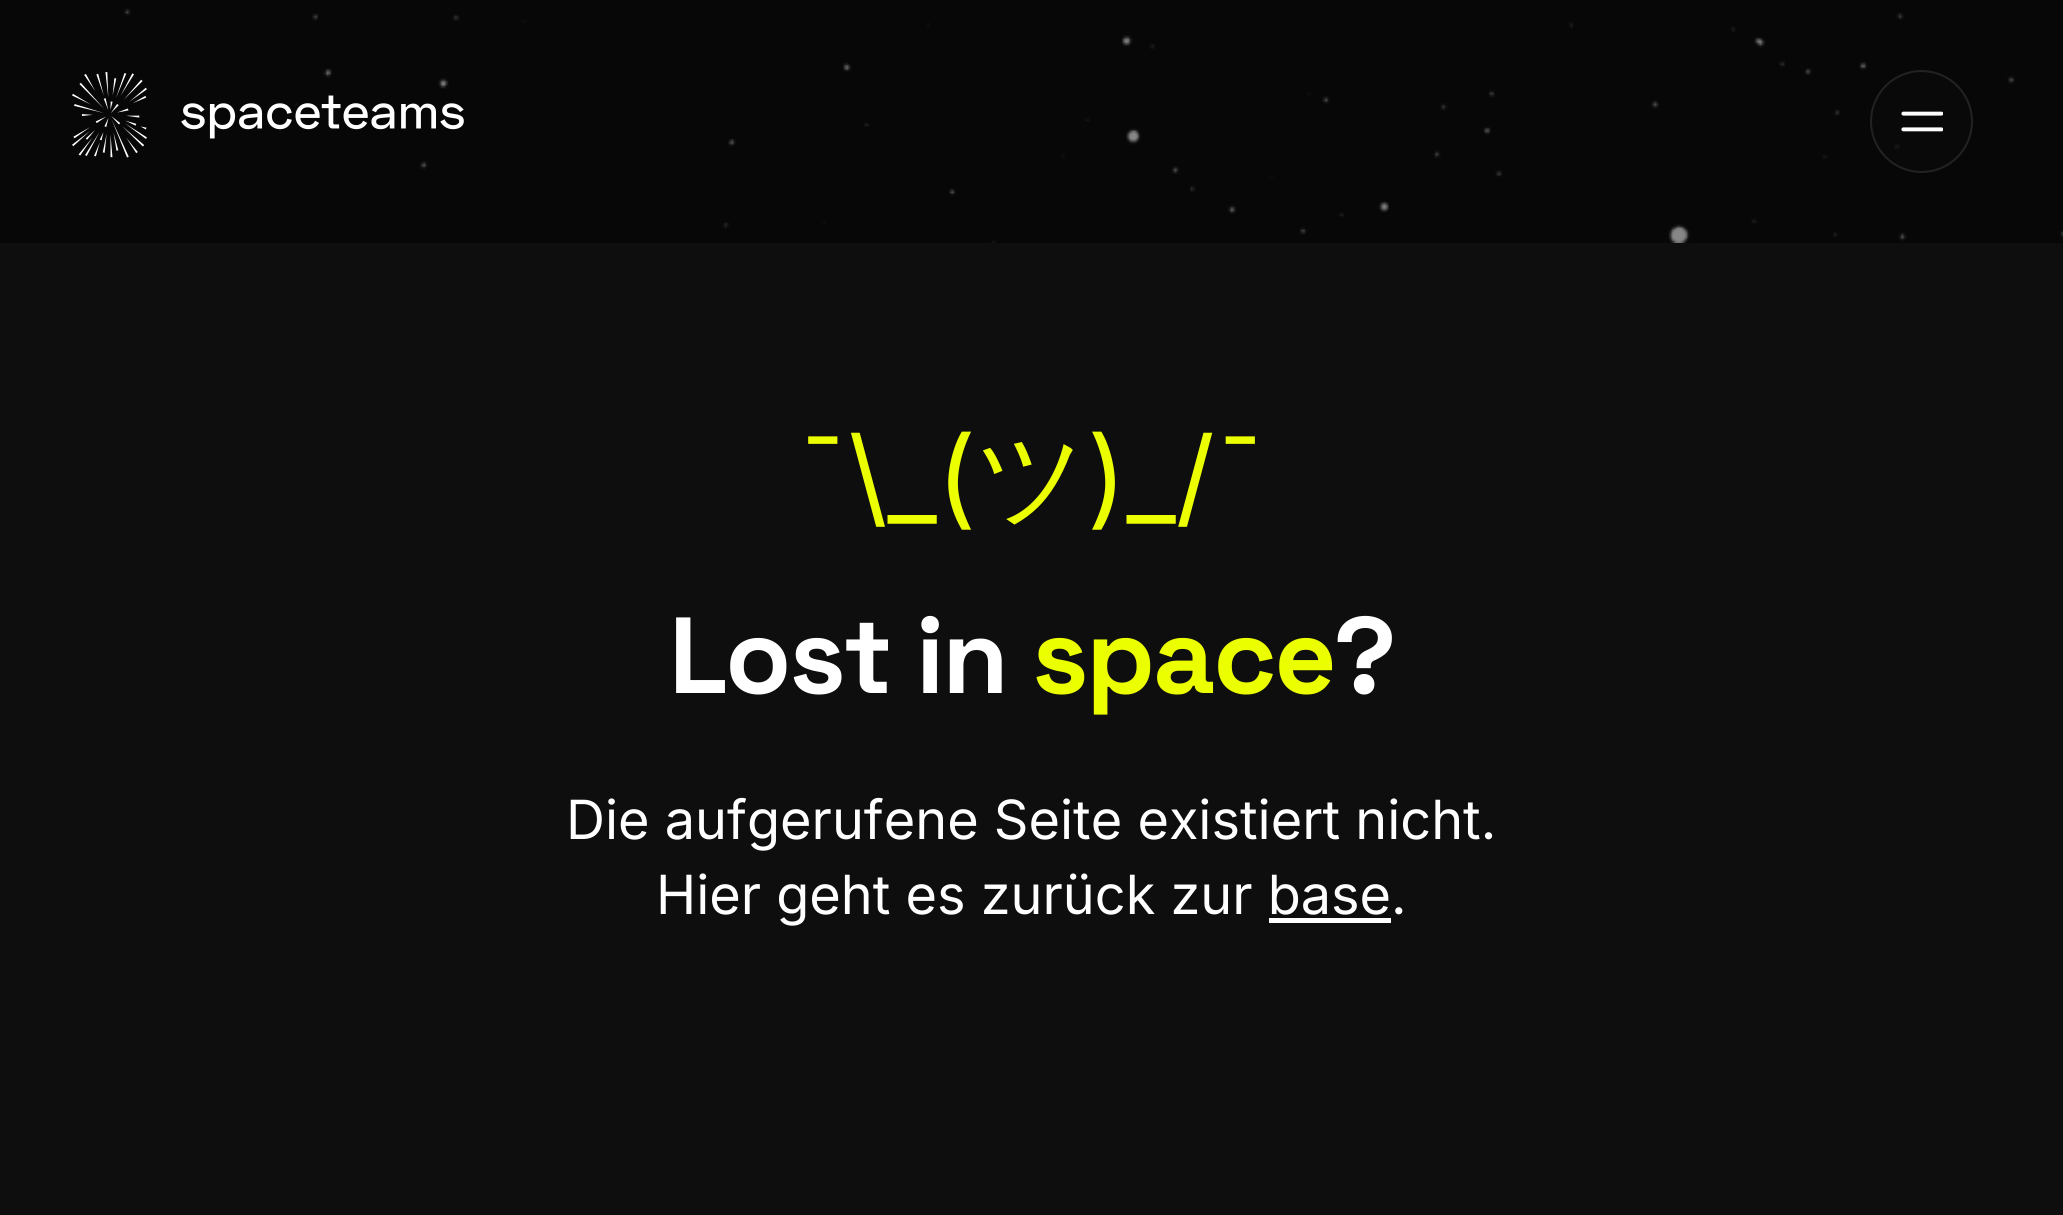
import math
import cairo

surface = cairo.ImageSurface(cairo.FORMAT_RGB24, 2063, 1215)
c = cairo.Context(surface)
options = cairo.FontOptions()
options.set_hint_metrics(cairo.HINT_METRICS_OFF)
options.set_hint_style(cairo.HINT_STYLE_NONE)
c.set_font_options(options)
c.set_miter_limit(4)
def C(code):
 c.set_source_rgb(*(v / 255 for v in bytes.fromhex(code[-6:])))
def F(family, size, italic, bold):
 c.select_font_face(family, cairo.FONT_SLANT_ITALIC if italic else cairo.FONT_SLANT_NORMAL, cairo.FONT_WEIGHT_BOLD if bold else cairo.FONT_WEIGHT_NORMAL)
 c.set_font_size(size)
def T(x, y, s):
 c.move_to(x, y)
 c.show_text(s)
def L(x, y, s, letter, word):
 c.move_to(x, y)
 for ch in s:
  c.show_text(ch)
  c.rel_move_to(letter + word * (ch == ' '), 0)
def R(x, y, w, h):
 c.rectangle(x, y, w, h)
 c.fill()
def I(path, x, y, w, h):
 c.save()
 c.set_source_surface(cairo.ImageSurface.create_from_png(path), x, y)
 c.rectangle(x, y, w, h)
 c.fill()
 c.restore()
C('0e0e0e')
c.paint()
I('1.png',0,0,2063,243)
I('2.png',72,72,75,86)
I('3.png',181,95,283,44)
c.set_source_rgba(0.055,0.055,0.055,0.3)
c.arc(1921.5,121.5,50.5,0,2 * math.pi)
c.fill_preserve()
C('222222')
c.stroke()
I('4.png',1901,111,42,21)
F('Inter',108,0,0)
C('ebff00')
T(797,515,'¯\\_(')
F('WenQuanYi Zen Hei Medium',108,0,0)
T(976,515,'ツ')
F('Inter',108,0,0)
T(1087,515,')_/¯')
F('Space Grotesk',108,0,1)
C('ffffff')
L(669,693,'Lost in',-2.25,0)
C('ebff00')
L(1032,693,'space',-2.25,0)
C('ffffff')
L(1334,693,'?',-2.25,0)
F('Inter',54,0,0)
T(566,839,'Die aufgerufene Seite existiert nicht.')
T(656,914,'Hier geht es zurück zur base.')
R(1269,918,122,5)
surface.write_to_png('o.png')
